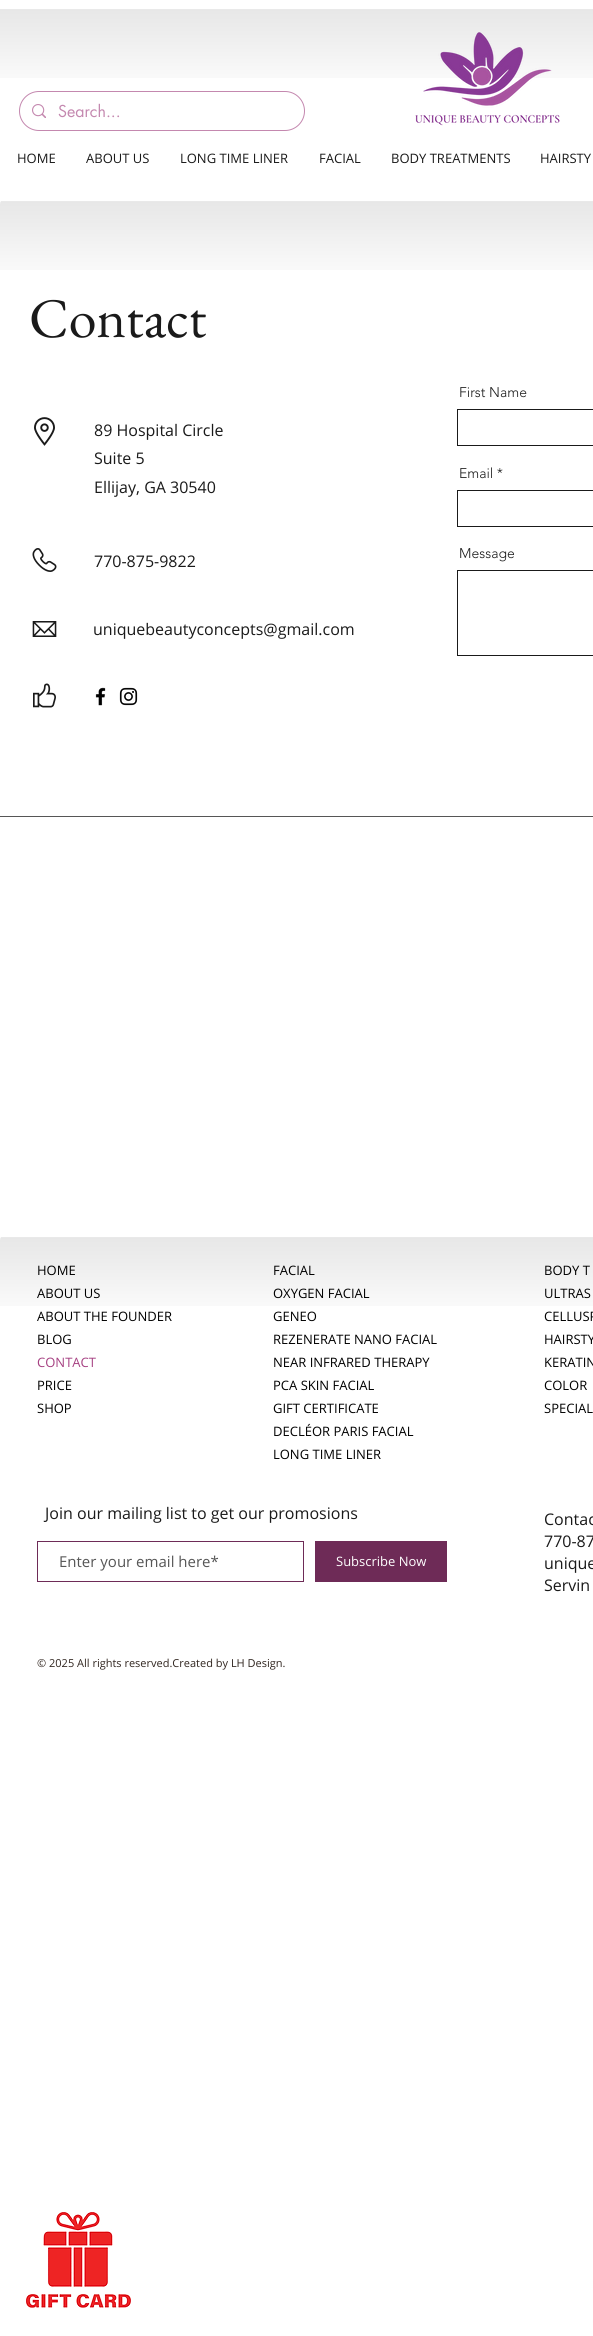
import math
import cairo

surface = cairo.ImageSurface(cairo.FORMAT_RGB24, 593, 2336)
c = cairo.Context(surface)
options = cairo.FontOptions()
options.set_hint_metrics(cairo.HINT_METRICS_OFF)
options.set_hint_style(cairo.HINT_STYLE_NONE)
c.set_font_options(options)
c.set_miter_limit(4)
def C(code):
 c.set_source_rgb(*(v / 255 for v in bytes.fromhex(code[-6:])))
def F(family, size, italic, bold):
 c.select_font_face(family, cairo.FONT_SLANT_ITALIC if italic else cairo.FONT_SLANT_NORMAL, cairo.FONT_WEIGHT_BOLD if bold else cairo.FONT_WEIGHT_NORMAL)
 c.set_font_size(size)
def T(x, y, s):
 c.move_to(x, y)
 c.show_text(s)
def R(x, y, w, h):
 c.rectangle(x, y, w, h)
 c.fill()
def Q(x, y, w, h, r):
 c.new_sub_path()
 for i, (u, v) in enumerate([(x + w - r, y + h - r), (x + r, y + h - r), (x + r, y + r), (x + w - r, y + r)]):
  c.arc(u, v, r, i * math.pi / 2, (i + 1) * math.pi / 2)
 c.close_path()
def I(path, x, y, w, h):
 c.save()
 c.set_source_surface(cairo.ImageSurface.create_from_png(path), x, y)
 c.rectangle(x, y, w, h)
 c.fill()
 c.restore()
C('ffffff')
c.paint()
I('1.png',0,9,593,69)
Q(19.5,91.5,285,39,19.5)
C('c488af')
c.set_line_width(1)
c.stroke()
I('2.png',32,104,14,14)
F('futura',16,0,0)
T(58,117,'Search...')
I('3.png',415,32,145,94)
F('Open Sans',13,0,0)
C('1a1a1a')
T(17,163,'HOME')
T(86,163,'ABOUT US')
T(180,163,'LONG TIME LINER')
T(319,163,'FACIAL')
T(391,163,'BODY TREATMENTS')
T(540,163,'HAIRSTY')
I('4.png',0,201,593,69)
F('EB Garamond',56,0,0)
T(29,337,'Contact')
I('5.png',34,417,21,29)
F('Open Sans',16,0,0)
T(94,436,'89 Hospital Circle')
T(94,464,'Suite 5')
T(94,493,'Ellijay, GA 30540')
I('6.png',32,548,25,24)
T(94,567,'770-875-9822')
I('7.png',32,621,25,16)
T(93,635,'uniquebeautyconcepts@gmail.com')
I('8.png',33,683,23,25)
I('9.png',95,687,11,19)
I('10.png',119,687,19,19)
F('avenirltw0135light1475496 Light',14,0,0)
T(459,397,'First Name')
c.rectangle(457.5,409.5,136,36)
c.stroke()
T(459,478,'Email *')
c.rectangle(457.5,490.5,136,36)
c.stroke()
T(459,558,'Message')
c.rectangle(457.5,570.5,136,85)
c.stroke()
C('565656')
R(0,816,593,1)
I('4.png',0,1237,593,69)
F('Open Sans',13,0,0)
C('000000')
T(37,1275,'HOME')
T(37,1298,'ABOUT US')
T(37,1321,'ABOUT THE FOUNDER')
T(37,1344,'BLOG')
C('a64182')
T(37,1367,'CONTACT')
C('000000')
T(37,1390,'PRICE')
T(37,1413,'SHOP')
T(273,1275,'FACIAL')
T(273,1298,'OXYGEN FACIAL')
T(273,1321,'GENEO')
T(273,1344,'REZENERATE NANO FACIAL')
T(273,1367,'NEAR INFRARED THERAPY')
T(273,1390,'PCA SKIN FACIAL')
T(273,1413,'GIFT CERTIFICATE')
T(273,1436,'DECLÉOR PARIS FACIAL')
T(273,1459,'LONG TIME LINER')
T(544,1275,'BODY T')
T(544,1298,'ULTRAS')
T(544,1321,'CELLUSP')
T(544,1344,'HAIRSTY')
T(544,1367,'KERATIN')
T(544,1390,'COLOR')
T(544,1413,'SPECIAL')
F('Open Sans',16,0,0)
C('1a1a1a')
T(45,1519,'Join our mailing list to get our promosions')
c.rectangle(37.5,1541.5,266,40)
C('6e2b57')
c.stroke()
F('Open Sans',15,0,0)
C('565656')
T(59,1567,'Enter your email here*')
C('6e2b57')
R(315,1541,132,41)
F('Open Sans',13,0,0)
C('ffffff')
T(336,1566,'Subscribe Now')
F('Open Sans',16,0,0)
C('1a1a1a')
T(544,1525,'Contac')
T(544,1547,'770-87')
T(544,1569,'unique')
T(544,1591,'Servin')
F('Open Sans',11,0,0)
C('30251f')
T(37,1667,'© 2025 All rights reserved.Created by LH Design.')
I('11.png',26,2212,105,96)
surface.write_to_png('o.png')
